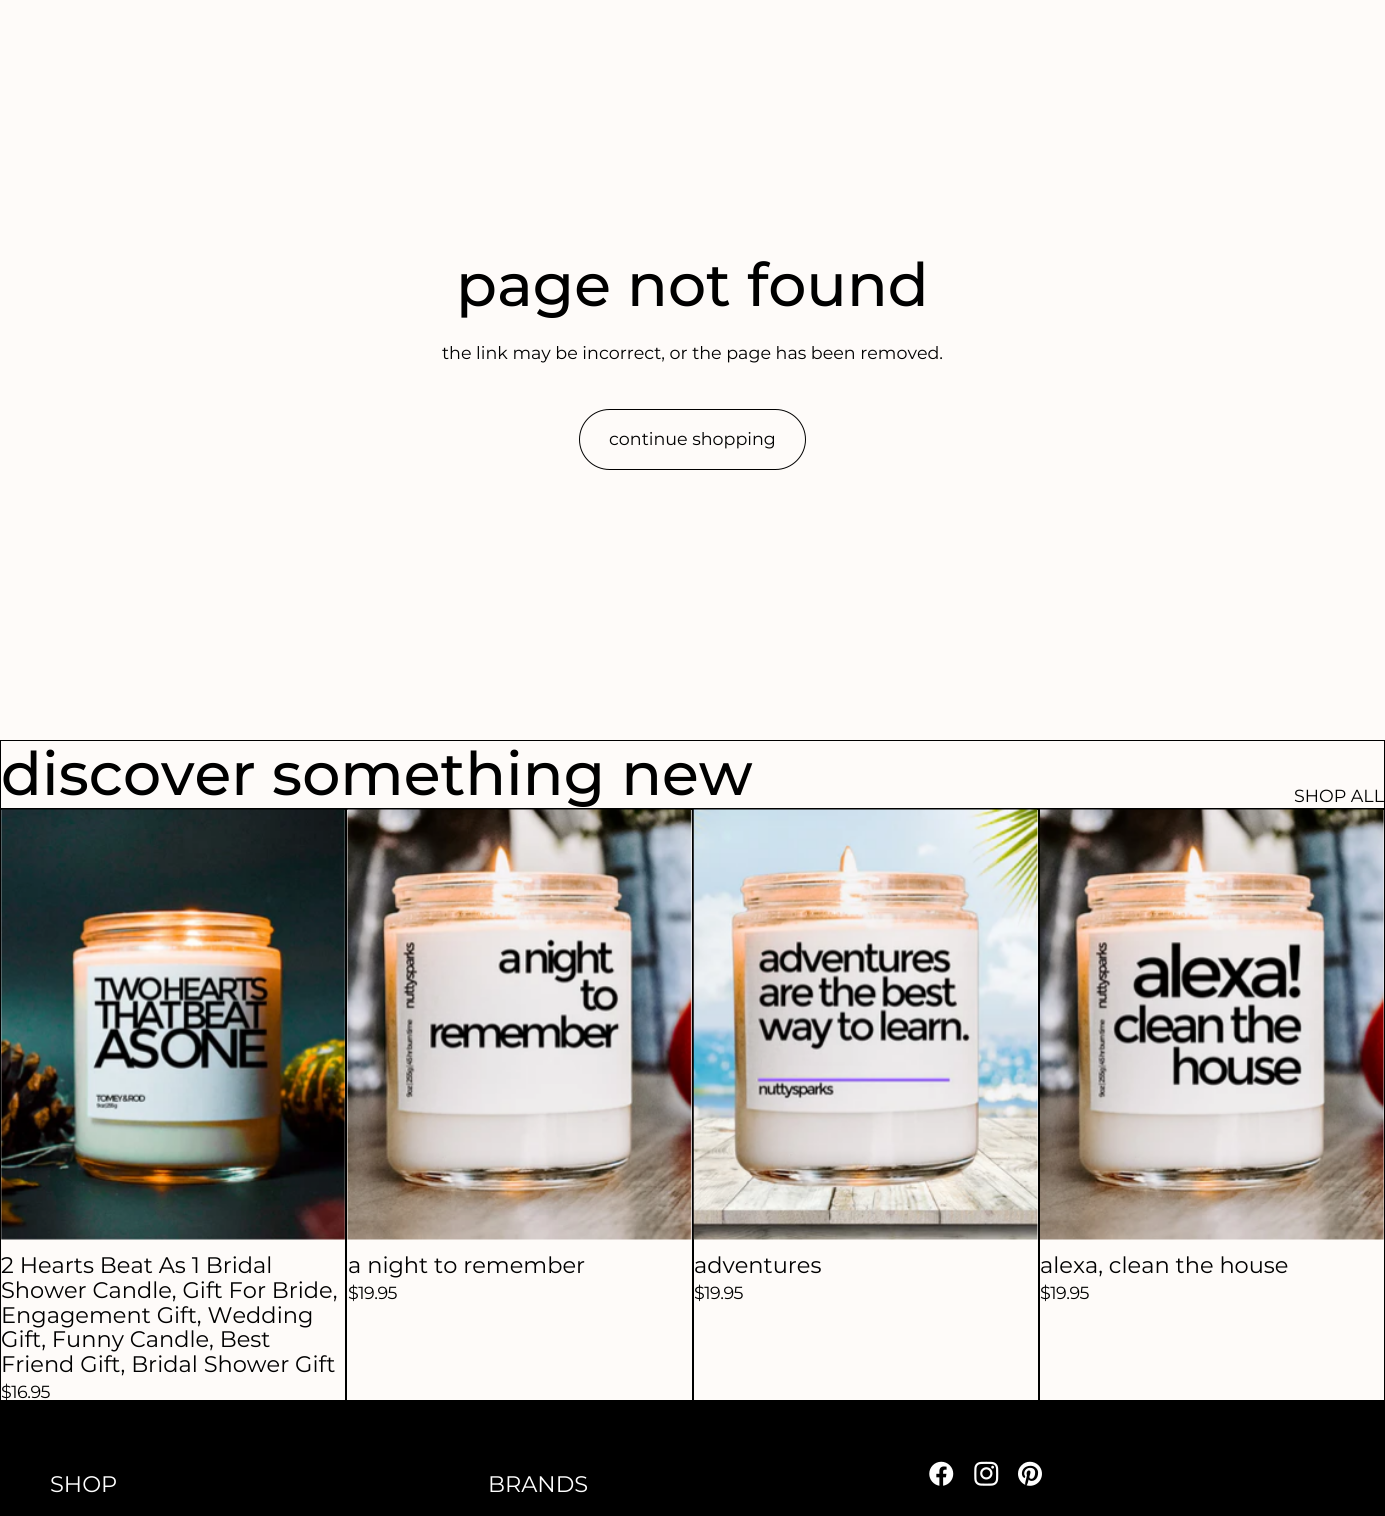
import math
import cairo

surface = cairo.ImageSurface(cairo.FORMAT_RGB24, 1385, 1516)
c = cairo.Context(surface)
options = cairo.FontOptions()
options.set_hint_metrics(cairo.HINT_METRICS_OFF)
options.set_hint_style(cairo.HINT_STYLE_NONE)
c.set_font_options(options)
c.set_miter_limit(4)
def C(code):
 c.set_source_rgb(*(v / 255 for v in bytes.fromhex(code[-6:])))
def F(family, size, italic, bold):
 c.select_font_face(family, cairo.FONT_SLANT_ITALIC if italic else cairo.FONT_SLANT_NORMAL, cairo.FONT_WEIGHT_BOLD if bold else cairo.FONT_WEIGHT_NORMAL)
 c.set_font_size(size)
def T(x, y, s):
 c.move_to(x, y)
 c.show_text(s)
def L(x, y, s, letter, word):
 c.move_to(x, y)
 for ch in s:
  c.show_text(ch)
  c.rel_move_to(letter + word * (ch == ' '), 0)
def R(x, y, w, h):
 c.rectangle(x, y, w, h)
 c.fill()
def Q(x, y, w, h, r):
 c.new_sub_path()
 for i, (u, v) in enumerate([(x + w - r, y + h - r), (x + r, y + h - r), (x + r, y + r), (x + w - r, y + r)]):
  c.arc(u, v, r, i * math.pi / 2, (i + 1) * math.pi / 2)
 c.close_path()
def I(path, x, y, w, h):
 c.save()
 c.set_source_surface(cairo.ImageSurface.create_from_png(path), x, y)
 c.rectangle(x, y, w, h)
 c.fill()
 c.restore()
C('fefbf9')
c.paint()
F('Montserrat Medium',60,0,0)
C('000000')
T(456,306,'page not found')
F('Montserrat',17.5,0,0)
T(442,359,'the link may be incorrect, or the page has been removed.')
Q(579.5,409.5,226,60,30)
c.set_line_width(1)
c.stroke()
T(609,445,'continue shopping')
c.rectangle(.5,740.5,1384,68)
c.stroke()
F('Montserrat Medium',60,0,0)
T(1,795,'discover something new')
F('Montserrat',17.5,0,0)
T(1294,802,'SHOP ALL')
c.rectangle(.5,809.5,345,591)
c.stroke()
I('1.png',1,809,344,431)
F('Montserrat',22.5,0,0)
T(1,1273,'2 Hearts Beat As 1 Bridal')
T(1,1298,'Shower Candle, Gift For Bride,')
T(1,1323,'Engagement Gift, Wedding')
T(1,1347,'Gift, Funny Candle, Best')
T(1,1372,'Friend Gift, Bridal Shower Gift')
F('Montserrat',17.5,0,0)
L(1,1398,'$16.95',-.5,0)
c.rectangle(346.5,809.5,346,591)
c.stroke()
I('2.png',347,809,345,431)
F('Montserrat',22.5,0,0)
T(348,1273,'a night to remember')
F('Montserrat',17.5,0,0)
L(348,1299,'$19.95',-.5,0)
c.rectangle(693.5,809.5,345,591)
c.stroke()
I('3.png',693,809,345,431)
F('Montserrat',22.5,0,0)
T(694,1273,'adventures')
F('Montserrat',17.5,0,0)
L(694,1299,'$19.95',-.5,0)
c.rectangle(1039.5,809.5,345,591)
c.stroke()
I('4.png',1040,809,344,431)
F('Montserrat',22.5,0,0)
T(1040,1273,'alexa, clean the house')
F('Montserrat',17.5,0,0)
L(1040,1299,'$19.95',-.5,0)
R(0,1401,1385,115)
F('Montserrat',22.5,0,0)
C('ffffff')
T(50,1492,'SHOP')
T(488,1492,'BRANDS')
I('5.png',929,1461,25,25)
I('6.png',974,1461,25,25)
I('7.png',1018,1461,24,25)
surface.write_to_png('o.png')
